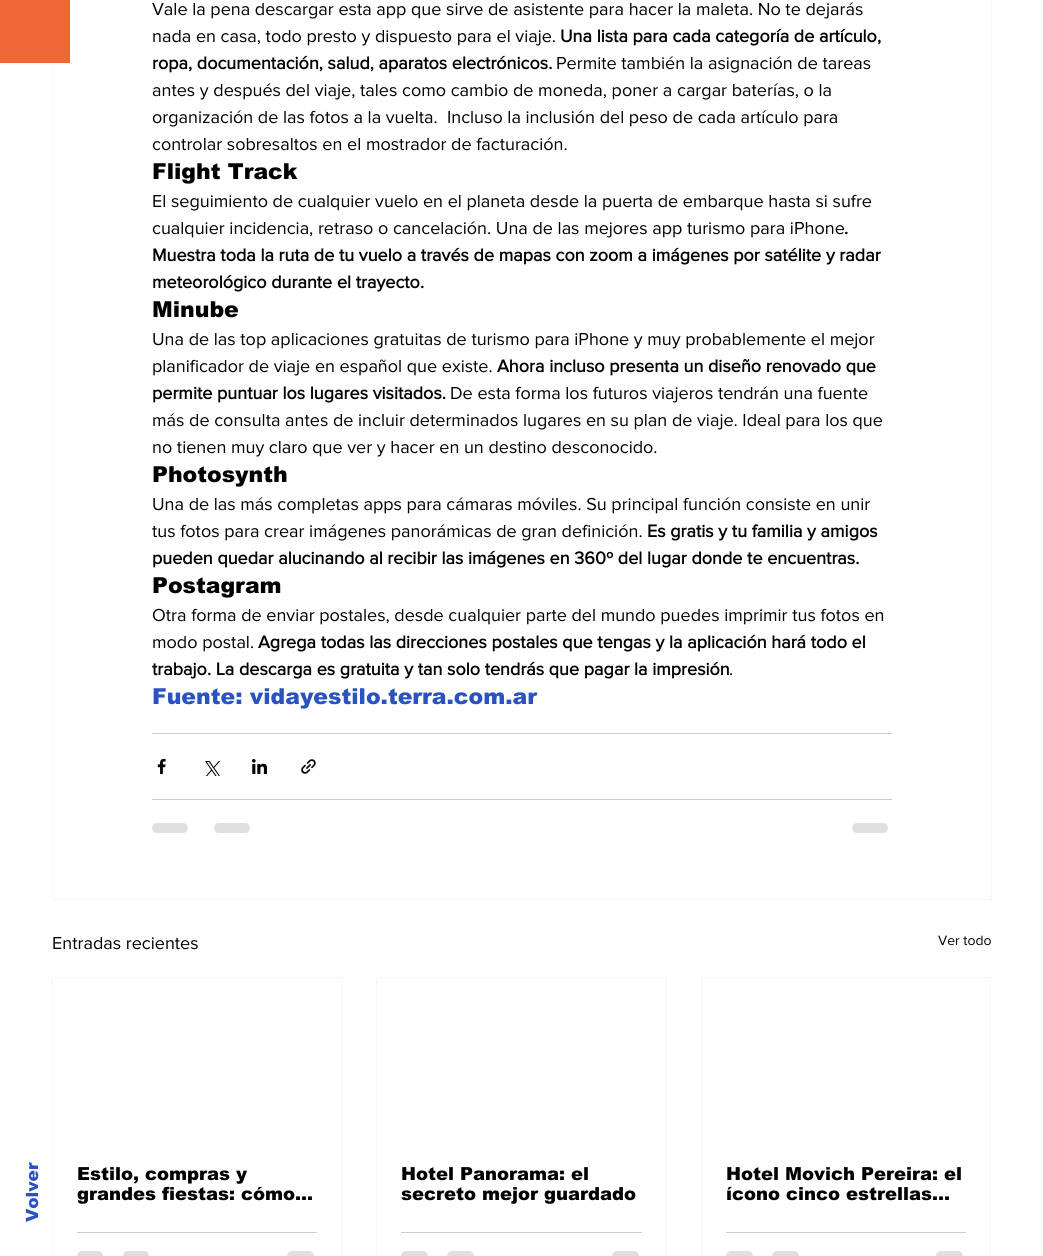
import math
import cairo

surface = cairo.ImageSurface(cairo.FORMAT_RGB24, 1043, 1256)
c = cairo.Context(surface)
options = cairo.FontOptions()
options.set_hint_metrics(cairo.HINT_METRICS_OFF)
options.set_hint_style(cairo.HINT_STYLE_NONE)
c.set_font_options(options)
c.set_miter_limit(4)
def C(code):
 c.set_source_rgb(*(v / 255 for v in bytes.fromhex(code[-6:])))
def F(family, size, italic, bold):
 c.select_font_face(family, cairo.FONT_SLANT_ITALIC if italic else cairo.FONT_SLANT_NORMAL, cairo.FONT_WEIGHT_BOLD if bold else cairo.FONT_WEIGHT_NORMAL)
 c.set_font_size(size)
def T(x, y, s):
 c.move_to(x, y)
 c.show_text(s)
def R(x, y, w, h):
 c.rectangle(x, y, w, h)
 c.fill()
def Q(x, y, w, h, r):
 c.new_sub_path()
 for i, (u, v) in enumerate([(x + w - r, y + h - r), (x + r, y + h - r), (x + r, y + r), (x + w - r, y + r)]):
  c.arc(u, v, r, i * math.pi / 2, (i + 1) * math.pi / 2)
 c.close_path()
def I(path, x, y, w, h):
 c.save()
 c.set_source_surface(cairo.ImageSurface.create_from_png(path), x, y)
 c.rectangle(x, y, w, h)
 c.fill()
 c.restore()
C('ffffff')
c.paint()
c.rectangle(52.5,-.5,939,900)
C('f5f5f5')
c.set_line_width(1)
c.stroke()
C('f06635')
R(0,0,70,63)
F('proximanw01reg',18,0,0)
C('000000')
T(152,15,'Vale la pena descargar esta app que sirve de asistente para hacer la maleta. No te dejarás')
T(152,42,'nada en casa, todo presto y dispuesto para el viaje.')
F('proximanw01reg',18,0,1)
T(560,42,'Una lista para cada categoría de artículo,')
T(152,69,'ropa, documentación, salud, aparatos electrónicos.')
F('proximanw01reg',18,0,0)
T(556,69,'Permite también la asignación de tareas')
T(152,96,'antes y después del viaje, tales como cambio de moneda, poner a cargar baterías, o la')
T(152,123,'organización de las fotos a la vuelta.  Incluso la inclusión del peso de cada artículo para')
T(152,150,'controlar sobresaltos en el mostrador de facturación.')
F('arial Black',22,0,0)
T(152,179,'Flight Track')
F('proximanw01reg',18,0,0)
T(152,207,'El seguimiento de cualquier vuelo en el planeta desde la puerta de embarque hasta si sufre')
T(152,234,'cualquier incidencia, retraso o cancelación. Una de las mejores app turismo para iPhone')
F('proximanw01reg',18,0,1)
T(844,234,'.')
T(152,261,'Muestra toda la ruta de tu vuelo a través de mapas con zoom a imágenes por satélite y radar')
T(152,288,'meteorológico durante el trayecto.')
F('arial Black',22,0,0)
T(152,317,'Minube')
F('proximanw01reg',18,0,0)
T(152,345,'Una de las top aplicaciones gratuitas de turismo para iPhone y muy probablemente el mejor')
T(152,372,'planificador de viaje en español que existe.')
F('proximanw01reg',18,0,1)
T(497,372,'Ahora incluso presenta un diseño renovado que')
T(152,399,'permite puntuar los lugares visitados.')
F('proximanw01reg',18,0,0)
T(450,399,'De esta forma los futuros viajeros tendrán una fuente')
T(152,426,'más de consulta antes de incluir determinados lugares en su plan de viaje. Ideal para los que')
T(152,453,'no tienen muy claro que ver y hacer en un destino desconocido.')
F('arial Black',22,0,0)
T(152,482,'Photosynth')
F('proximanw01reg',18,0,0)
T(152,510,'Una de las más completas apps para cámaras móviles. Su principal función consiste en unir')
T(152,537,'tus fotos para crear imágenes panorámicas de gran definición.')
F('proximanw01reg',18,0,1)
T(647,537,'Es gratis y tu familia y amigos')
T(152,564,'pueden quedar alucinando al recibir las imágenes en 360º del lugar donde te encuentras.')
F('arial Black',22,0,0)
T(152,593,'Postagram')
F('proximanw01reg',18,0,0)
T(152,621,'Otra forma de enviar postales, desde cualquier parte del mundo puedes imprimir tus fotos en')
T(152,648,'modo postal.')
F('proximanw01reg',18,0,1)
T(258,648,'Agrega todas las direcciones postales que tengas y la aplicación hará todo el')
T(152,675,'trabajo. La descarga es gratuita y tan solo tendrás que pagar la impresión')
F('proximanw01reg',18,0,0)
T(729,675,'.')
F('arial Black',22,0,0)
C('2a53c1')
T(152,704,'Fuente: vidayestilo.terra.com.ar')
C('cccccc')
R(152,733,740,1)
I('1.png',157,759,9,15)
I('2.png',205,761,15,15)
I('3.png',252,759,15,15)
I('4.png',301,759,15,15)
R(152,799,740,1)
C('e0e0e0')
Q(152,823,36,10,5)
c.fill()
Q(214,823,36,10,5)
c.fill()
Q(852,823,36,10,5)
c.fill()
F('proximanw01reg',18,0,0)
C('000000')
T(52,949,'Entradas recientes')
F('proximanw01reg',14,0,0)
T(938,945,'Ver todo')
c.rectangle(52.5,977.5,289,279)
C('f5f5f5')
c.stroke()
F('arial Black',18,0,0)
C('000000')
T(77,1180,'Estilo, compras y')
T(77,1200,'grandes fiestas: cómo…')
C('cccccc')
R(77,1232,240,1)
C('e0e0e0')
Q(77,1251,26,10,5)
c.fill()
Q(123,1251,26,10,5)
c.fill()
Q(287,1251,27,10,5)
c.fill()
c.rectangle(376.5,977.5,290,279)
C('f5f5f5')
c.stroke()
C('000000')
T(401,1180,'Hotel Panorama: el')
T(401,1200,'secreto mejor guardado')
C('cccccc')
R(401,1232,241,1)
C('e0e0e0')
Q(401,1251,27,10,5)
c.fill()
Q(447,1251,27,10,5)
c.fill()
Q(612,1251,27,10,5)
c.fill()
c.rectangle(701.5,977.5,289,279)
C('f5f5f5')
c.stroke()
C('000000')
T(726,1180,'Hotel Movich Pereira: el')
T(726,1200,'ícono cinco estrellas…')
C('cccccc')
R(726,1232,240,1)
C('e0e0e0')
Q(726,1251,27,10,5)
c.fill()
Q(772,1251,27,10,5)
c.fill()
Q(936,1251,27,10,5)
c.fill()
F('arial Black',17,0,0)
C('2a53c1')
c.save()
c.translate(38,1222)
c.rotate(-90 * math.pi / 180)
T(0,0,'Volver')
c.restore()
surface.write_to_png('o.png')
